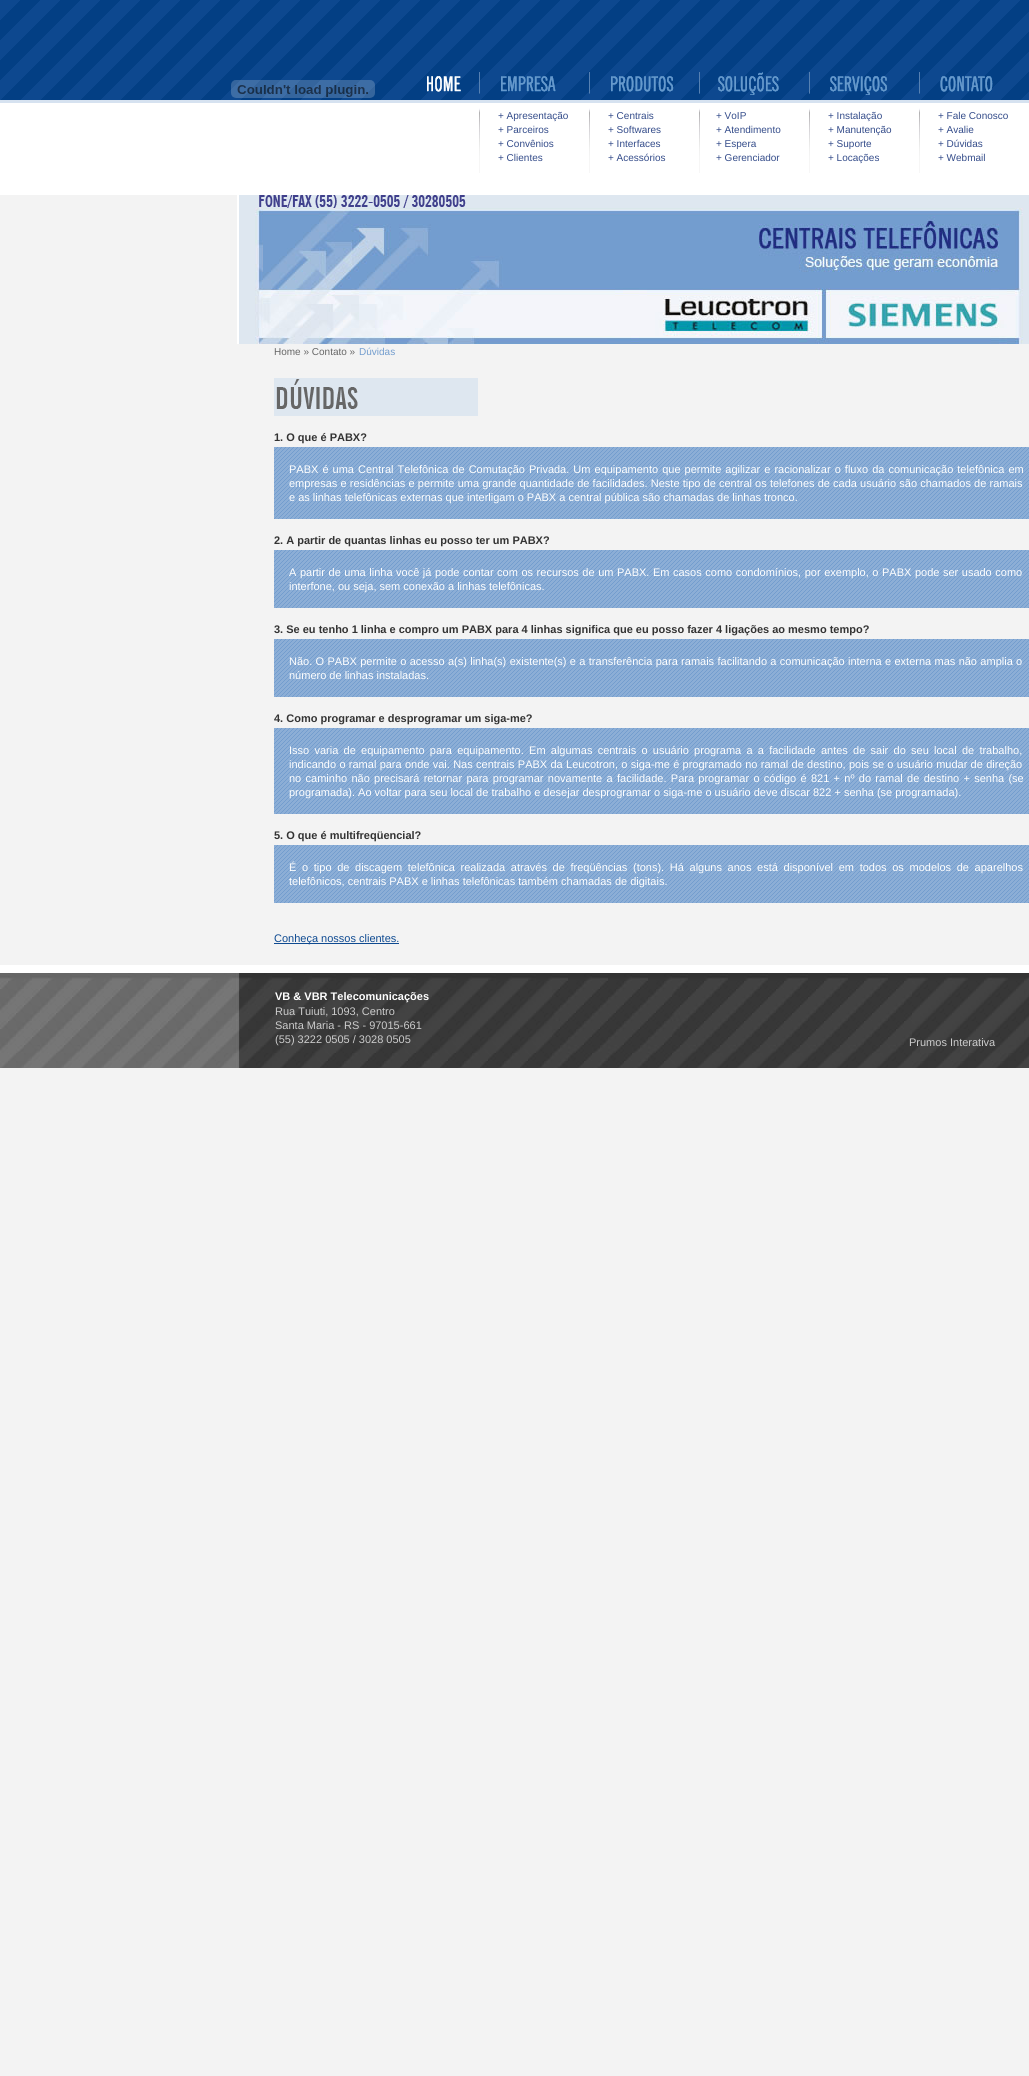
import math
import cairo

surface = cairo.ImageSurface(cairo.FORMAT_RGB24, 1029, 2076)
c = cairo.Context(surface)
options = cairo.FontOptions()
options.set_hint_metrics(cairo.HINT_METRICS_OFF)
options.set_hint_style(cairo.HINT_STYLE_NONE)
c.set_font_options(options)
c.set_miter_limit(4)
def C(code):
 c.set_source_rgb(*(v / 255 for v in bytes.fromhex(code[-6:])))
def F(family, size, italic, bold):
 c.select_font_face(family, cairo.FONT_SLANT_ITALIC if italic else cairo.FONT_SLANT_NORMAL, cairo.FONT_WEIGHT_BOLD if bold else cairo.FONT_WEIGHT_NORMAL)
 c.set_font_size(size)
def T(x, y, s):
 c.move_to(x, y)
 c.show_text(s)
def L(x, y, s, letter, word):
 c.move_to(x, y)
 for ch in s:
  c.show_text(ch)
  c.rel_move_to(letter + word * (ch == ' '), 0)
def R(x, y, w, h):
 c.rectangle(x, y, w, h)
 c.fill()
def I(path, x, y, w, h):
 c.save()
 c.set_source_surface(cairo.ImageSurface.create_from_png(path), x, y)
 c.rectangle(x, y, w, h)
 c.fill()
 c.restore()
C('f3f3f3')
c.paint()
I('1.png',0,0,1029,100)
C('ffffff')
R(0,103,1029,92)
C('d6e2f0')
R(0,100,1029,3)
I('2.png',231,80,144,18)
I('3.png',427,76,34,16)
I('4.png',479,72,1,22)
I('5.png',479,108,1,65)
I('6.png',501,76,55,16)
F('Liberation Sans',10,0,0)
C('344c8a')
T(498,119,'+ Apresentação')
T(498,133,'+ Parceiros')
T(498,147,'+ Convênios')
T(498,161,'+ Clientes')
I('4.png',589,72,1,22)
I('5.png',589,108,1,65)
I('7.png',611,76,63,16)
T(608,119,'+ Centrais')
T(608,133,'+ Softwares')
T(608,147,'+ Interfaces')
T(608,161,'+ Acessórios')
I('4.png',699,72,1,22)
I('5.png',699,108,1,65)
I('8.png',718,72,61,23)
T(716,119,'+ VoIP')
T(716,133,'+ Atendimento')
T(716,147,'+ Espera')
T(716,161,'+ Gerenciador')
I('4.png',809,72,1,22)
I('5.png',809,108,1,65)
I('9.png',830,76,57,19)
T(828,119,'+ Instalação')
T(828,133,'+ Manutenção')
T(828,147,'+ Suporte')
T(828,161,'+ Locações')
I('4.png',919,72,1,22)
I('5.png',919,108,1,65)
I('10.png',940,76,53,16)
T(938,119,'+ Fale Conosco')
T(938,133,'+ Avalie')
T(938,147,'+ Dúvidas')
T(938,161,'+ Webmail')
C('dee7f0')
R(239,195,790,146)
C('ffffff')
R(237,195,2,149)
I('11.png',259,195,207,13)
C('dee7f0')
R(237,341,792,3)
I('12.png',255,208,768,136)
C('ffffff')
R(237,341,2,3)
C('666666')
T(274,355,'Home » Contato »')
C('739dce')
T(359,355,'Dúvidas')
I('13.png',274,378,204,38)
F('Liberation Sans',11,0,1)
C('333333')
T(274,441,'1. O que é PABX?')
I('14.png',274,447,755,72)
F('Liberation Sans',11,0,0)
C('ffffff')
L(289,473,'PABX é uma Central Telefônica de Comutação Privada. Um equipamento que permite agilizar e racionalizar o fluxo da comunicação telefônica em',0,1)
L(289,487,'empresas e residências e permite uma grande quantidade de facilidades. Neste tipo de central os telefones de cada usuário são chamados de ramais',0,.1)
T(289,501,'e as linhas telefônicas externas que interligam o PABX a central pública são chamadas de linhas tronco.')
F('Liberation Sans',11,0,1)
C('333333')
T(274,544,'2. A partir de quantas linhas eu posso ter um PABX?')
I('15.png',274,550,755,58)
F('Liberation Sans',11,0,0)
C('ffffff')
L(289,576,'A partir de uma linha você já pode contar com os recursos de um PABX. Em casos como condomínios, por exemplo, o PABX pode ser usado como',0,.5)
T(289,590,'interfone, ou seja, sem conexão a linhas telefônicas.')
F('Liberation Sans',11,0,1)
C('333333')
T(274,633,'3. Se eu tenho 1 linha e compro um PABX para 4 linhas significa que eu posso fazer 4 ligações ao mesmo tempo?')
I('15.png',274,639,755,58)
F('Liberation Sans',11,0,0)
C('ffffff')
L(289,665,'Não. O PABX permite o acesso a(s) linha(s) existente(s) e a transferência para ramais facilitando a comunicação interna e externa mas não amplia o',0,.3)
T(289,679,'número de linhas instaladas.')
F('Liberation Sans',11,0,1)
C('333333')
T(274,722,'4. Como programar e desprogramar um siga-me?')
I('16.png',274,728,755,86)
F('Liberation Sans',11,0,0)
C('ffffff')
L(289,754,'Isso varia de equipamento para equipamento. Em algumas centrais o usuário programa a a facilidade antes de sair do seu local de trabalho,',0,2.2)
L(289,768,'indicando o ramal para onde vai. Nas centrais PABX da Leucotron, o siga-me é programado no ramal de destino, pois se o usuário mudar de direção',0,.25)
L(289,782,'no caminho não precisará retornar para programar novamente a facilidade. Para programar o código é 821 + nº do ramal de destino + senha (se',0,1.25)
T(289,796,'programada). Ao voltar para seu local de trabalho e desejar desprogramar o siga-me o usuário deve discar 822 + senha (se programada).')
F('Liberation Sans',11,0,1)
C('333333')
T(274,839,'5. O que é multifreqüencial?')
I('15.png',274,845,755,58)
F('Liberation Sans',11,0,0)
C('ffffff')
L(289,871,'É o tipo de discagem telefônica realizada através de freqüências (tons). Há alguns anos está disponível em todos os modelos de aparelhos',0,2.6)
T(289,885,'telefônicos, centrais PABX e linhas telefônicas também chamadas de digitais.')
C('0e4a91')
R(274,943,125,1)
T(274,942,'Conheça nossos clientes.')
I('17.png',0,973,1029,95)
C('ffffff')
R(0,965,1029,8)
F('Liberation Sans',11,0,1)
T(275,1000,'VB & VBR Telecomunicações')
F('Liberation Sans',11,0,0)
C('cccccc')
T(275,1015,'Rua Tuiuti, 1093, Centro')
T(275,1029,'Santa Maria - RS - 97015-661')
T(275,1043,'(55) 3222 0505 / 3028 0505')
T(909,1046,'Prumos Interativa')
surface.write_to_png('o.png')
